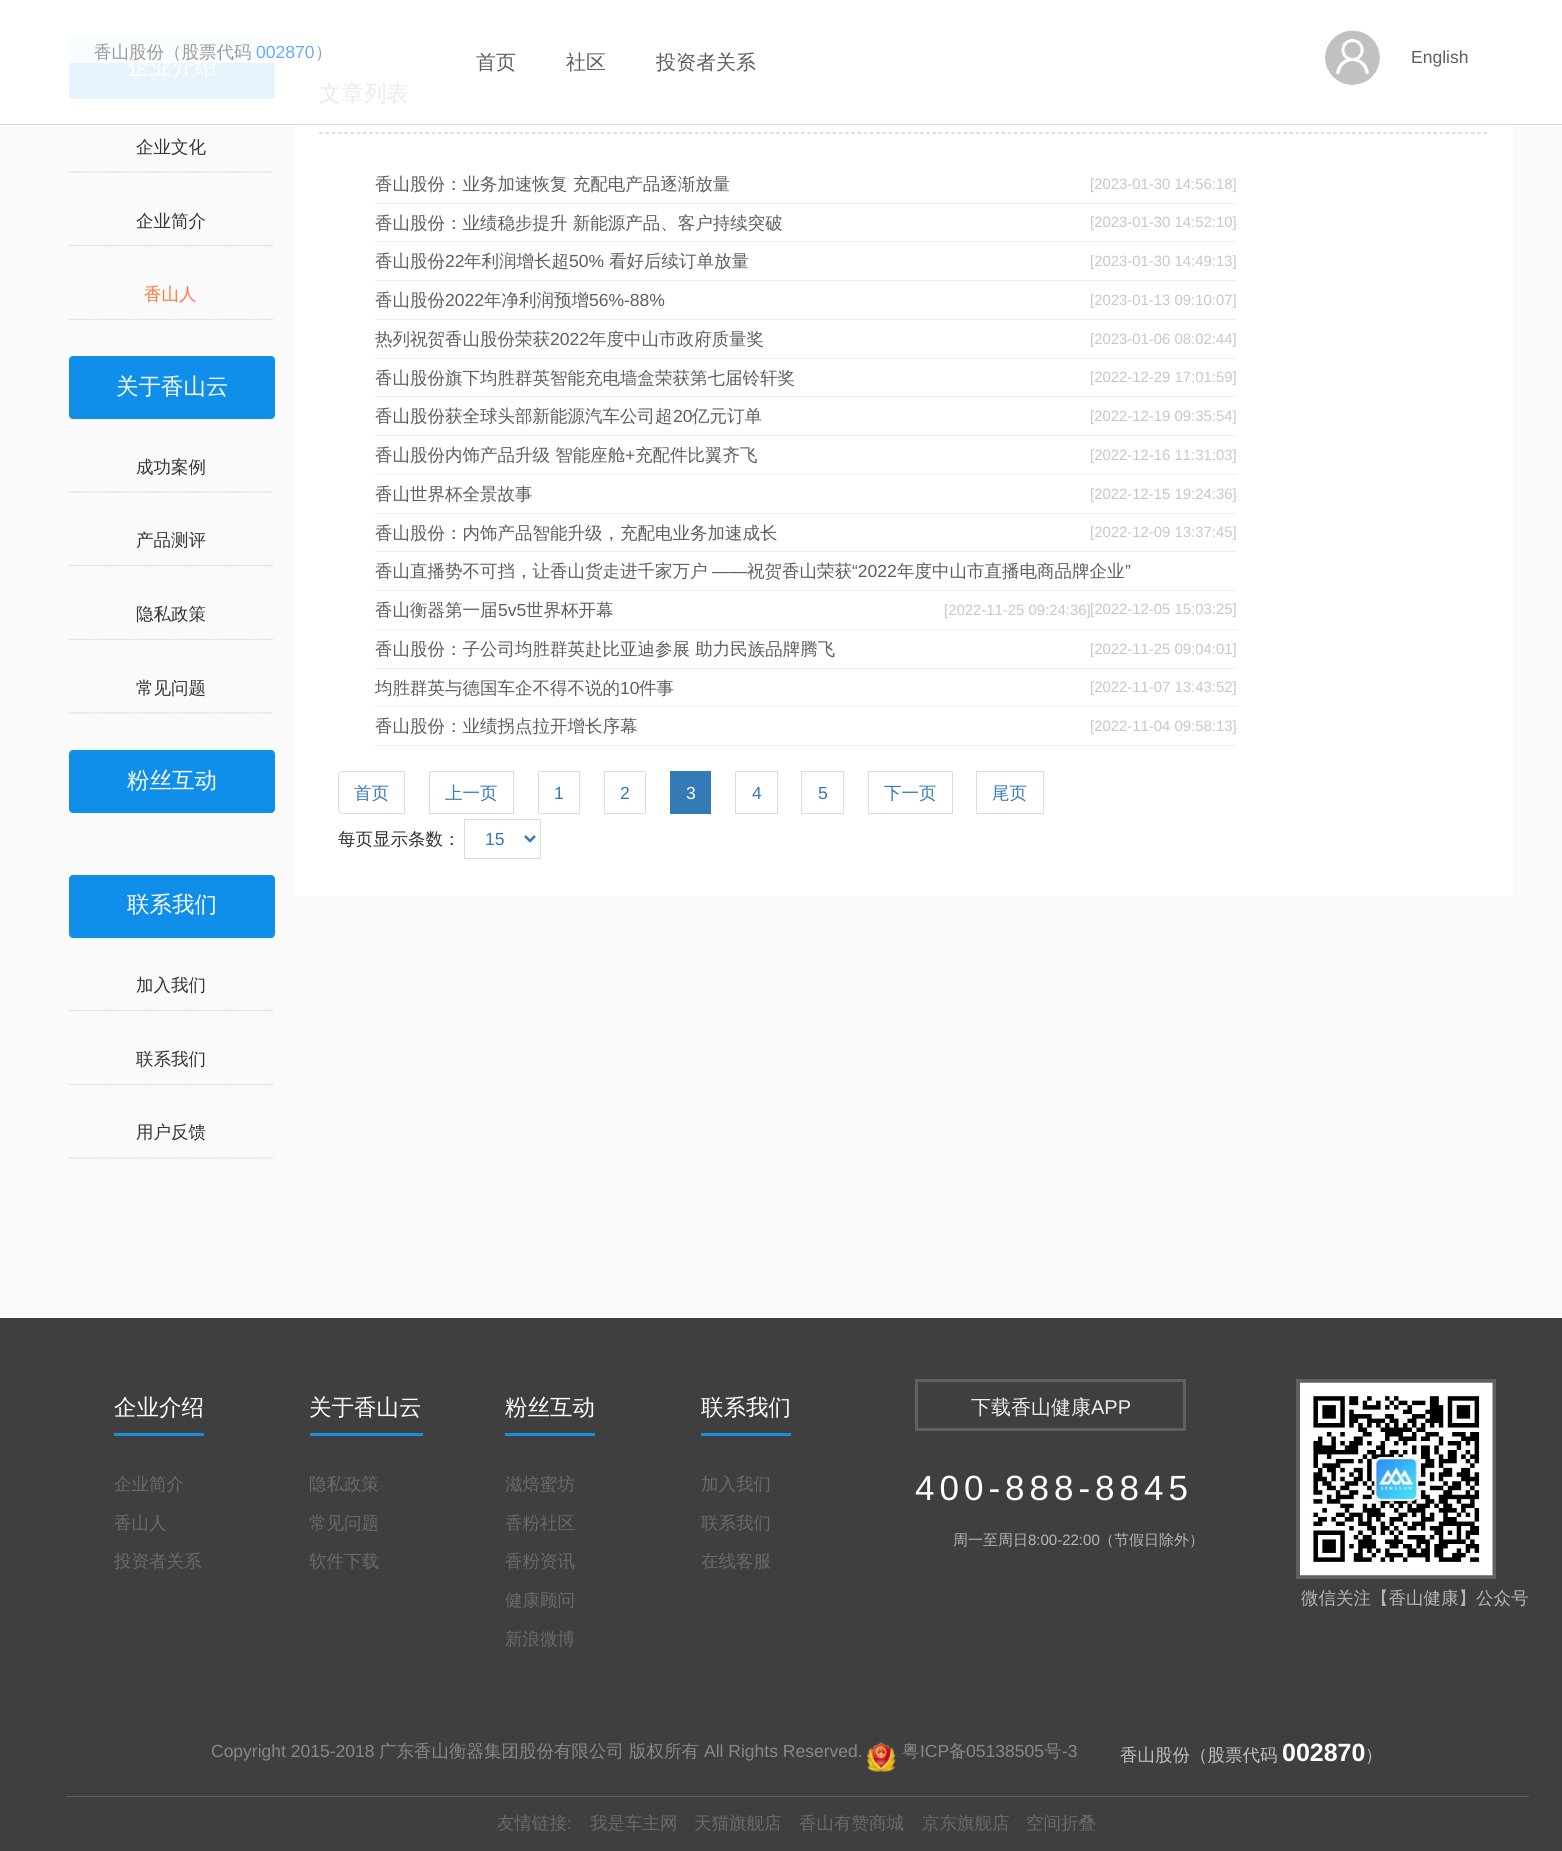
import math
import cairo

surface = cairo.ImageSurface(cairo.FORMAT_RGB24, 1562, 1851)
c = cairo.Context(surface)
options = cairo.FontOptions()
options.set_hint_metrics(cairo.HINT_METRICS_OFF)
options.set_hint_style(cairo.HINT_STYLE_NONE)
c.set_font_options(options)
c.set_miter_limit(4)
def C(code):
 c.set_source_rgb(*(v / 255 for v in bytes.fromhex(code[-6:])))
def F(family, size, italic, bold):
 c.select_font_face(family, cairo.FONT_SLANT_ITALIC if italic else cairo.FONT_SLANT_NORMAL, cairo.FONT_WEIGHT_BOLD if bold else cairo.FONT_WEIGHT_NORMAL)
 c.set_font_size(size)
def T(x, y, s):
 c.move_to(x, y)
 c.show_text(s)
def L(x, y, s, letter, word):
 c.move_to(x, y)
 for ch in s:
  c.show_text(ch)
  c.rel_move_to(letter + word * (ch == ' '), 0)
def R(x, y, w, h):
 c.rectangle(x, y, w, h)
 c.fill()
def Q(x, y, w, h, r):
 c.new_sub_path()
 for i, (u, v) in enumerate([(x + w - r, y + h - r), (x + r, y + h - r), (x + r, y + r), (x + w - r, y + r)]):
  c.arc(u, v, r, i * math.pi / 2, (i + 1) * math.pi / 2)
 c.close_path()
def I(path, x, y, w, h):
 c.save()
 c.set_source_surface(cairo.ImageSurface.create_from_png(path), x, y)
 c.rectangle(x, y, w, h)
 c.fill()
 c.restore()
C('fafafa')
c.paint()
C('ffffff')
R(0,0,1562,124)
C('e7f4fd')
Q(69,36,206,63,4)
c.fill()
F('WenQuanYi Zen Hei Medium',22.5,0,0)
C('ffffff')
T(127,74,'企业介绍')
c.set_source_rgba(1,1,1,0.8)
R(69,36,206,27)
C('dcdcdc')
R(0,124,1562,1)
F('WenQuanYi Zen Hei Medium',17.5,0,0)
C('999999')
T(94,58,'香山股份（股票代码')
F('Liberation Sans',17.5,0,0)
C('64abff')
T(256,58,'002870')
F('WenQuanYi Zen Hei Medium',17.5,0,0)
C('999999')
T(315,58,'）')
F('WenQuanYi Zen Hei Medium',20,0,0)
C('5f5d5d')
T(476,69,'首页')
T(566,69,'社区')
T(656,69,'投资者关系')
I('1.png',1325,30,55,55)
F('Liberation Sans',17.5,0,0)
T(1411,63,'English')
c.new_path()
c.move_to(69,172)
c.line_to(272.5,172)
C('cccccc')
c.set_line_width(1.2)
c.set_dash([1.25,1.25])
c.stroke()
F('WenQuanYi Zen Hei Medium',17.5,0,0)
C('333333')
T(136,153,'企业文化')
c.new_path()
c.move_to(69,245.5)
c.line_to(272.5,245.5)
C('cccccc')
c.stroke()
C('333333')
T(136,227,'企业简介')
c.new_path()
c.move_to(69,319.5)
c.line_to(272.5,319.5)
C('cccccc')
c.stroke()
C('ff773e')
T(144,300,'香山人')
C('108fea')
Q(69,356,206,63,4)
c.fill()
F('WenQuanYi Zen Hei Medium',22.5,0,0)
C('ffffff')
T(116,394,'关于香山云')
c.new_path()
c.move_to(69,492)
c.line_to(272.5,492)
C('cccccc')
c.stroke()
F('WenQuanYi Zen Hei Medium',17.5,0,0)
C('333333')
T(136,473,'成功案例')
c.new_path()
c.move_to(69,565.5)
c.line_to(272.5,565.5)
C('cccccc')
c.stroke()
C('333333')
T(136,546,'产品测评')
c.new_path()
c.move_to(69,639.5)
c.line_to(272.5,639.5)
C('cccccc')
c.stroke()
C('333333')
T(136,620,'隐私政策')
c.new_path()
c.move_to(69,713)
c.line_to(272.5,713)
C('cccccc')
c.stroke()
C('333333')
T(136,694,'常见问题')
C('108fea')
Q(69,750,206,63,4)
c.fill()
F('WenQuanYi Zen Hei Medium',22.5,0,0)
C('ffffff')
T(127,788,'粉丝互动')
C('108fea')
Q(69,875,206,63,4)
c.fill()
C('ffffff')
T(127,912,'联系我们')
c.new_path()
c.move_to(69,1010.5)
c.line_to(272.5,1010.5)
C('cccccc')
c.stroke()
F('WenQuanYi Zen Hei Medium',17.5,0,0)
C('333333')
T(136,991,'加入我们')
c.new_path()
c.move_to(69,1084.5)
c.line_to(272.5,1084.5)
C('cccccc')
c.stroke()
C('333333')
T(136,1065,'联系我们')
c.new_path()
c.move_to(69,1158)
c.line_to(272.5,1158)
C('cccccc')
c.stroke()
C('333333')
T(136,1138,'用户反馈')
C('ffffff')
R(294,125,1219,771)
c.new_path()
c.move_to(319,133)
c.line_to(1487.5,133)
C('cccccc')
c.set_dash([3.75,2.51])
c.stroke()
F('WenQuanYi Zen Hei Medium',22.5,0,0)
C('ebebeb')
T(319,101,'文章列表')
F('WenQuanYi Zen Hei Medium',17.5,0,0)
C('5f5d5d')
T(375,190,'香山股份：业务加速恢复 充配电产品逐渐放量')
F('Liberation Sans',14.9,0,0)
C('c7c7c7')
T(1090,189,'[2023-01-30 14:56:18]')
C('eeeeee')
R(375,203,861,1)
F('WenQuanYi Zen Hei Medium',17.5,0,0)
C('5f5d5d')
T(375,229,'香山股份：业绩稳步提升 新能源产品、客户持续突破')
F('Liberation Sans',14.9,0,0)
C('c7c7c7')
T(1090,227,'[2023-01-30 14:52:10]')
C('eeeeee')
R(375,241,861,1)
F('WenQuanYi Zen Hei Medium',17.5,0,0)
C('5f5d5d')
T(375,267,'香山股份')
F('Liberation Sans',17.5,0,0)
T(445,267,'22')
F('WenQuanYi Zen Hei Medium',17.5,0,0)
T(464,267,'年利润增长超')
F('Liberation Sans',17.5,0,0)
T(569,267,'50%')
F('WenQuanYi Zen Hei Medium',17.5,0,0)
T(609,267,'看好后续订单放量')
F('Liberation Sans',14.9,0,0)
C('c7c7c7')
T(1090,266,'[2023-01-30 14:49:13]')
C('eeeeee')
R(375,280,861,1)
F('WenQuanYi Zen Hei Medium',17.5,0,0)
C('5f5d5d')
T(375,306,'香山股份')
F('Liberation Sans',17.5,0,0)
T(445,306,'2022')
F('WenQuanYi Zen Hei Medium',17.5,0,0)
T(484,306,'年净利润预增')
F('Liberation Sans',17.5,0,0)
T(589,306,'56%-88%')
F('Liberation Sans',14.9,0,0)
C('c7c7c7')
T(1090,305,'[2023-01-13 09:10:07]')
C('eeeeee')
R(375,319,861,1)
F('WenQuanYi Zen Hei Medium',17.5,0,0)
C('5f5d5d')
T(375,345,'热列祝贺香山股份荣获')
F('Liberation Sans',17.5,0,0)
T(550,345,'2022')
F('WenQuanYi Zen Hei Medium',17.5,0,0)
T(589,345,'年度中山市政府质量奖')
F('Liberation Sans',14.9,0,0)
C('c7c7c7')
T(1090,344,'[2023-01-06 08:02:44]')
C('eeeeee')
R(375,358,861,1)
F('WenQuanYi Zen Hei Medium',17.5,0,0)
C('5f5d5d')
T(375,384,'香山股份旗下均胜群英智能充电墙盒荣获第七届铃轩奖')
F('Liberation Sans',14.9,0,0)
C('c7c7c7')
T(1090,382,'[2022-12-29 17:01:59]')
C('eeeeee')
R(375,396,861,1)
F('WenQuanYi Zen Hei Medium',17.5,0,0)
C('5f5d5d')
T(375,422,'香山股份获全球头部新能源汽车公司超')
F('Liberation Sans',17.5,0,0)
T(673,422,'20')
F('WenQuanYi Zen Hei Medium',17.5,0,0)
T(692,422,'亿元订单')
F('Liberation Sans',14.9,0,0)
C('c7c7c7')
T(1090,421,'[2022-12-19 09:35:54]')
C('eeeeee')
R(375,435,861,1)
F('WenQuanYi Zen Hei Medium',17.5,0,0)
C('5f5d5d')
T(375,461,'香山股份内饰产品升级 智能座舱')
F('Liberation Sans',17.5,0,0)
T(625,461,'+')
F('WenQuanYi Zen Hei Medium',17.5,0,0)
T(635,461,'充配件比翼齐飞')
F('Liberation Sans',14.9,0,0)
C('c7c7c7')
T(1090,460,'[2022-12-16 11:31:03]')
C('eeeeee')
R(375,474,861,1)
F('WenQuanYi Zen Hei Medium',17.5,0,0)
C('5f5d5d')
T(375,500,'香山世界杯全景故事')
F('Liberation Sans',14.9,0,0)
C('c7c7c7')
T(1090,499,'[2022-12-15 19:24:36]')
C('eeeeee')
R(375,513,861,1)
F('WenQuanYi Zen Hei Medium',17.5,0,0)
C('5f5d5d')
T(375,539,'香山股份：内饰产品智能升级，充配电业务加速成长')
F('Liberation Sans',14.9,0,0)
C('c7c7c7')
T(1090,537,'[2022-12-09 13:37:45]')
C('eeeeee')
R(375,551,861,1)
F('WenQuanYi Zen Hei Medium',17.5,0,0)
C('5f5d5d')
T(375,577,'香山直播势不可挡，让香山货走进千家万户')
F('Liberation Sans',17.5,0,0)
T(712,577,'——')
F('WenQuanYi Zen Hei Medium',17.5,0,0)
T(747,577,'祝贺香山荣获')
F('Liberation Sans',17.5,0,0)
T(852,577,'“2022')
F('WenQuanYi Zen Hei Medium',17.5,0,0)
T(897,577,'年度中山市直播电商品牌企业')
F('Liberation Sans',17.5,0,0)
T(1125,577,'”')
F('Liberation Sans',14.9,0,0)
C('c7c7c7')
T(1090,614,'[2022-12-05 15:03:25]')
C('eeeeee')
R(375,590,861,1)
F('WenQuanYi Zen Hei Medium',17.5,0,0)
C('5f5d5d')
T(375,616,'香山衡器第一届')
F('Liberation Sans',17.5,0,0)
T(498,616,'5v5')
F('WenQuanYi Zen Hei Medium',17.5,0,0)
T(526,616,'世界杯开幕')
F('Liberation Sans',14.9,0,0)
C('c7c7c7')
T(944,615,'[2022-11-25 09:24:36]')
C('eeeeee')
R(375,629,861,1)
F('WenQuanYi Zen Hei Medium',17.5,0,0)
C('5f5d5d')
T(375,655,'香山股份：子公司均胜群英赴比亚迪参展 助力民族品牌腾飞')
F('Liberation Sans',14.9,0,0)
C('c7c7c7')
T(1090,654,'[2022-11-25 09:04:01]')
C('eeeeee')
R(375,668,861,1)
F('WenQuanYi Zen Hei Medium',17.5,0,0)
C('5f5d5d')
T(375,694,'均胜群英与德国车企不得不说的')
F('Liberation Sans',17.5,0,0)
T(620,694,'10')
F('WenQuanYi Zen Hei Medium',17.5,0,0)
T(639,694,'件事')
F('Liberation Sans',14.9,0,0)
C('c7c7c7')
T(1090,692,'[2022-11-07 13:43:52]')
C('eeeeee')
R(375,706,861,1)
F('WenQuanYi Zen Hei Medium',17.5,0,0)
C('5f5d5d')
T(375,732,'香山股份：业绩拐点拉开增长序幕')
F('Liberation Sans',14.9,0,0)
C('c7c7c7')
T(1090,731,'[2022-11-04 09:58:13]')
C('eeeeee')
R(375,745,861,1)
c.new_path()
c.move_to(343,771.5)
c.line_to(404.5,771.5)
c.line_to(404.5,813.5)
c.line_to(343,813.5)
c.curve_to(340.5,813.5,338.5,811.5,338.5,809)
c.line_to(338.5,776)
c.curve_to(338.5,773.5,340.5,771.5,343,771.5)
c.close_path()
C('dddddd')
c.set_line_width(1)
c.set_dash([])
c.stroke()
F('WenQuanYi Zen Hei Medium',17.5,0,0)
C('337ab7')
T(354,799,'首页')
c.rectangle(429.5,771.5,84,42)
C('dddddd')
c.stroke()
C('337ab7')
T(445,799,'上一页')
c.rectangle(538.5,771.5,41,42)
C('dddddd')
c.stroke()
F('Liberation Sans',17.5,0,0)
C('337ab7')
T(554,799,'1')
c.rectangle(604.5,771.5,41,42)
C('dddddd')
c.stroke()
C('337ab7')
T(620,799,'2')
R(670,771,41,43)
C('ffffff')
T(686,799,'3')
c.rectangle(735.5,771.5,42,42)
C('dddddd')
c.stroke()
C('337ab7')
T(752,799,'4')
c.rectangle(801.5,771.5,42,42)
C('dddddd')
c.stroke()
C('337ab7')
T(818,799,'5')
c.rectangle(868.5,771.5,84,42)
C('dddddd')
c.stroke()
F('WenQuanYi Zen Hei Medium',17.5,0,0)
C('337ab7')
T(884,799,'下一页')
c.rectangle(976.5,771.5,67,42)
C('dddddd')
c.stroke()
C('337ab7')
T(992,799,'尾页')
C('333333')
T(338,845,'每页显示条数：')
c.rectangle(464.5,819.5,76,39)
C('dddddd')
c.stroke()
c.new_path()
c.move_to(525,836)
c.line_to(530,841)
c.line_to(535,836)
C('337ab7')
c.set_line_width(2.5)
c.stroke()
F('Liberation Sans',17.5,0,0)
T(485,845,'15')
C('3f3f3f')
R(0,1318,1562,533)
F('WenQuanYi Zen Hei Medium',22.5,0,0)
C('ffffff')
T(114,1415,'企业介绍')
C('1a8fda')
R(114,1433,90,3)
F('WenQuanYi Zen Hei Medium',17.5,0,0)
C('696a6c')
T(114,1490,'企业简介')
T(114,1529,'香山人')
T(114,1567,'投资者关系')
F('WenQuanYi Zen Hei Medium',22.5,0,0)
C('ffffff')
T(309,1415,'关于香山云')
C('1a8fda')
R(310,1433,113,3)
F('WenQuanYi Zen Hei Medium',17.5,0,0)
C('696a6c')
T(309,1490,'隐私政策')
T(309,1529,'常见问题')
T(309,1567,'软件下载')
F('WenQuanYi Zen Hei Medium',22.5,0,0)
C('ffffff')
T(505,1415,'粉丝互动')
C('1a8fda')
R(505,1433,90,3)
F('WenQuanYi Zen Hei Medium',17.5,0,0)
C('696a6c')
T(505,1490,'滋焙蜜坊')
T(505,1529,'香粉社区')
T(505,1567,'香粉资讯')
T(505,1606,'健康顾问')
T(505,1645,'新浪微博')
F('WenQuanYi Zen Hei Medium',22.5,0,0)
C('ffffff')
T(701,1415,'联系我们')
C('1a8fda')
R(701,1433,90,3)
F('WenQuanYi Zen Hei Medium',17.5,0,0)
C('696a6c')
T(701,1490,'加入我们')
T(701,1529,'联系我们')
T(701,1567,'在线客服')
c.rectangle(916.5,1380.5,268,49)
C('606060')
c.set_line_width(3)
c.stroke()
F('WenQuanYi Zen Hei Medium',20,0,0)
C('ebebeb')
T(971,1414,'下载香山健康')
F('Liberation Sans',20,0,0)
T(1091,1414,'APP')
F('Liberation Sans',35,0,0)
C('ffffff')
L(915,1500,'400-888-8845',5,0)
F('WenQuanYi Zen Hei Medium',15,0,0)
C('b7b7b7')
T(953,1545,'周一至周日')
F('Liberation Sans',15,0,0)
T(1028,1545,'8:00-22:00')
F('WenQuanYi Zen Hei Medium',15,0,0)
T(1099,1545,'（节假日除外）')
c.rectangle(1298,1381,196,196)
C('606060')
c.set_line_width(4)
c.stroke()
I('2.png',1300,1382,193,194)
F('WenQuanYi Zen Hei Medium',17.5,0,0)
C('b7b7b7')
T(1301,1604,'微信关注【香山健康】公众号')
F('Liberation Sans',17.5,0,0)
C('888888')
T(211,1757,'Copyright 2015-2018')
F('WenQuanYi Zen Hei Medium',17.5,0,0)
T(379,1757,'广东香山衡器集团股份有限公司')
T(629,1757,'版权所有')
F('Liberation Sans',17.5,0,0)
T(704,1757,'All Rights Reserved.')
I('3.png',867,1742,28,30)
F('WenQuanYi Zen Hei Medium',17.5,0,0)
T(902,1757,'粤')
F('Liberation Sans',17.5,0,0)
T(920,1757,'ICP')
F('WenQuanYi Zen Hei Medium',17.5,0,0)
T(949,1757,'备')
F('Liberation Sans',17.5,0,0)
T(966,1757,'05138505')
F('WenQuanYi Zen Hei Medium',17.5,0,0)
T(1044,1757,'号')
F('Liberation Sans',17.5,0,0)
T(1062,1757,'-3')
F('WenQuanYi Zen Hei Medium',17.5,0,0)
C('c0c0c0')
T(1120,1761,'香山股份（股票代码')
F('Liberation Sans',25,0,1)
C('ffffff')
T(1282,1761,'002870')
F('WenQuanYi Zen Hei Medium',17.5,0,0)
C('c0c0c0')
T(1365,1761,'）')
C('606060')
R(66,1796,1463,1)
C('696a6c')
T(497,1829,'友情链接')
F('Liberation Sans',17.5,0,0)
T(567,1829,':')
F('WenQuanYi Zen Hei Medium',17.5,0,0)
T(590,1829,'我是车主网')
T(694,1829,'天猫旗舰店')
T(799,1829,'香山有赞商城')
T(922,1829,'京东旗舰店')
T(1026,1829,'空间折叠')
surface.write_to_png('o.png')
